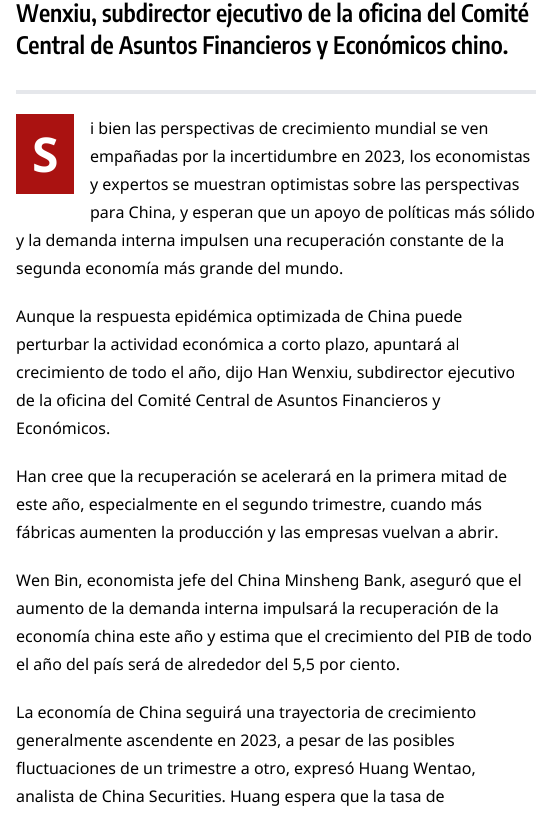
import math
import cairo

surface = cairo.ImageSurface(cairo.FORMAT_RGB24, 552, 826)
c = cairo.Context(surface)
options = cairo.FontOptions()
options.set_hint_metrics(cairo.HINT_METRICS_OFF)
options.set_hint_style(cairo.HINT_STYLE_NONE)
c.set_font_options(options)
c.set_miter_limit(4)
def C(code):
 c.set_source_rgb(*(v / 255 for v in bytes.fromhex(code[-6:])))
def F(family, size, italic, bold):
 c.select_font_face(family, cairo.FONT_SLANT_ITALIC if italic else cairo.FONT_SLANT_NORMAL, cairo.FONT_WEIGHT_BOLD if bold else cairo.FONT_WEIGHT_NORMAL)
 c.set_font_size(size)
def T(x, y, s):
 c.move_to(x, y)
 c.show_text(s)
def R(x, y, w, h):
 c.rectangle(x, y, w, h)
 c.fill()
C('ffffff')
c.paint()
C('e5e7eb')
R(16,90,520,4)
F('Encode Sans Condensed SemiBold',24,0,0)
C('000000')
T(16,22,'Wenxiu, subdirector ejecutivo de la oficina del Comité')
T(16,54,'Central de Asuntos Financieros y Económicos chino.')
F('Noto Sans',16,0,0)
T(90,134,'i bien las perspectivas de crecimiento mundial se ven')
C('aa1211')
R(16,114,58,80)
F('Noto Sans',48,0,1)
C('ffffff')
T(32,172,'S')
F('Noto Sans',16,0,0)
C('000000')
T(90,162,'empañadas por la incertidumbre en 2023, los economistas')
T(90,190,'y expertos se muestran optimistas sobre las perspectivas')
T(90,218,'para China, y esperan que un apoyo de políticas más sólido')
T(16,246,'y la demanda interna impulsen una recuperación constante de la')
T(16,274,'segunda economía más grande del mundo.')
T(16,322,'Aunque la respuesta epidémica optimizada de China puede')
T(16,350,'perturbar la actividad económica a corto plazo, apuntará al')
T(16,378,'crecimiento de todo el año, dijo Han Wenxiu, subdirector ejecutivo')
T(16,406,'de la oficina del Comité Central de Asuntos Financieros y')
T(16,434,'Económicos.')
T(16,482,'Han cree que la recuperación se acelerará en la primera mitad de')
T(16,510,'este año, especialmente en el segundo trimestre, cuando más')
T(16,538,'fábricas aumenten la producción y las empresas vuelvan a abrir.')
T(16,586,'Wen Bin, economista jefe del China Minsheng Bank, aseguró que el')
T(16,614,'aumento de la demanda interna impulsará la recuperación de la')
T(16,642,'economía china este año y estima que el crecimiento del PIB de todo')
T(16,670,'el año del país será de alrededor del 5,5 por ciento.')
T(16,718,'La economía de China seguirá una trayectoria de crecimiento')
T(16,746,'generalmente ascendente en 2023, a pesar de las posibles')
T(16,774,'fluctuaciones de un trimestre a otro, expresó Huang Wentao,')
T(16,802,'analista de China Securities. Huang espera que la tasa de')
surface.write_to_png('o.png')
